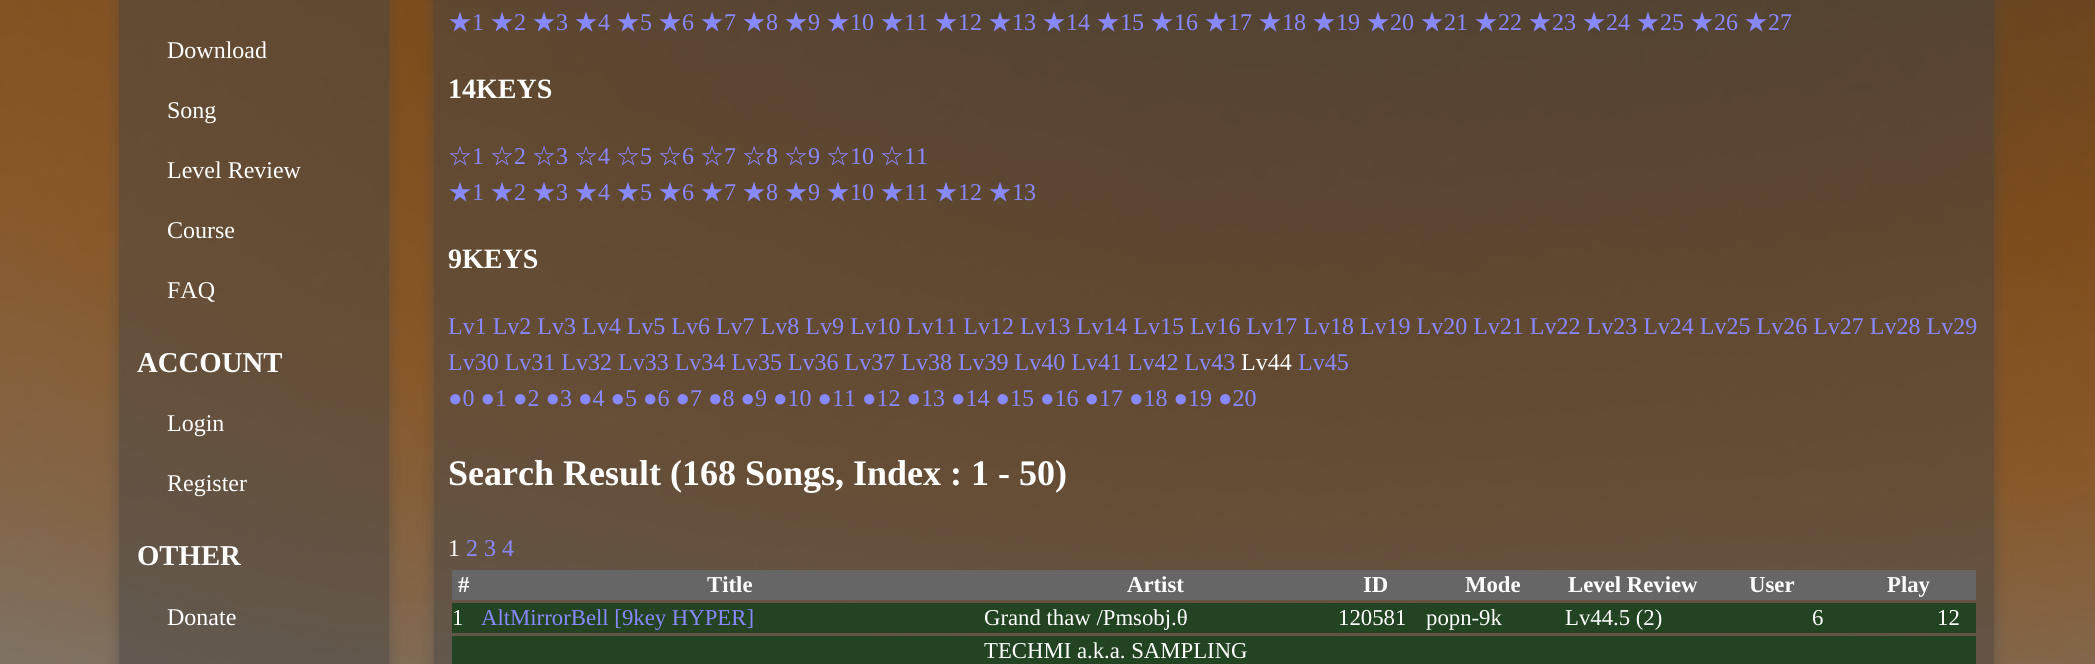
import math
import cairo

surface = cairo.ImageSurface(cairo.FORMAT_RGB24, 2095, 664)
c = cairo.Context(surface)
options = cairo.FontOptions()
options.set_hint_metrics(cairo.HINT_METRICS_OFF)
options.set_hint_style(cairo.HINT_STYLE_NONE)
c.set_font_options(options)
c.set_miter_limit(4)
def C(code):
 c.set_source_rgb(*(v / 255 for v in bytes.fromhex(code[-6:])))
def F(family, size, italic, bold):
 c.select_font_face(family, cairo.FONT_SLANT_ITALIC if italic else cairo.FONT_SLANT_NORMAL, cairo.FONT_WEIGHT_BOLD if bold else cairo.FONT_WEIGHT_NORMAL)
 c.set_font_size(size)
def T(x, y, s):
 c.move_to(x, y)
 c.show_text(s)
def R(x, y, w, h):
 c.rectangle(x, y, w, h)
 c.fill()
def Q(x, y, w, h, r):
 c.new_sub_path()
 for i, (u, v) in enumerate([(x + w - r, y + h - r), (x + r, y + h - r), (x + r, y + r), (x + w - r, y + r)]):
  c.arc(u, v, r, i * math.pi / 2, (i + 1) * math.pi / 2)
 c.close_path()
def S(x, y, w, h, r, blur, alpha):
 c.push_group_with_content(cairo.CONTENT_ALPHA)
 c.set_operator(cairo.OPERATOR_SOURCE)
 for i in range(15, -16, -2):
  e = blur * i / 6
  if min(w, h) + 2 * e > 0:
   c.set_source_rgba(0, 0, 0, alpha * math.erfc((i - 1) / 8.5) / 2)
   Q(x - e, y - e, w + 2 * e, h + 2 * e, max(0, min(r + e + blur * .6, min(w, h) / 2 + e)))
   c.fill()
 c.mask(c.pop_group())
def I(path, x, y, w, h):
 c.save()
 c.set_source_surface(cairo.ImageSurface.create_from_png(path), x, y)
 c.rectangle(x, y, w, h)
 c.fill()
 c.restore()
C('ffffff')
c.paint()
I('1.png',0,0,2095,664)
c.save()
c.set_fill_rule(cairo.FILL_RULE_EVEN_ODD)
c.new_path()
c.move_to(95,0)
c.line_to(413,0)
c.line_to(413,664)
c.line_to(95,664)
c.close_path()
c.move_to(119,-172)
c.line_to(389,-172)
c.line_to(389,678)
c.line_to(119,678)
c.close_path()
c.clip()
C('444444')
S(119,-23,270,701,0,7.5,.5)
c.restore()
c.set_source_rgba(0.267,0.267,0.267,0.5)
R(119,0,270,664)
F('Liberation Serif',24,0,0)
C('ffffff')
T(167,58,'Download')
T(167,118,'Song')
T(167,178,'Level Review')
T(167,238,'Course')
T(167,298,'FAQ')
F('Liberation Serif',28.75,0,1)
T(137,372,'ACCOUNT')
F('Liberation Serif',24,0,0)
T(167,431,'Login')
T(167,491,'Register')
F('Liberation Serif',28.75,0,1)
T(137,565,'OTHER')
F('Liberation Serif',24,0,0)
T(167,625,'Donate')
c.save()
c.set_fill_rule(cairo.FILL_RULE_EVEN_ODD)
c.new_path()
c.move_to(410,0)
c.line_to(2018,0)
c.line_to(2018,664)
c.line_to(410,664)
c.close_path()
c.move_to(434,-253)
c.line_to(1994,-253)
c.line_to(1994,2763)
c.line_to(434,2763)
c.close_path()
c.clip()
C('444444')
S(434,-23,1560,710,0,7.5,.5)
c.restore()
c.set_source_rgba(0.267,0.267,0.267,0.5)
R(434,0,1560,664)
F('WenQuanYi Zen Hei Medium',24,0,0)
C('8888ff')
T(448,30,'★')
F('Liberation Serif',24,0,0)
T(472,30,'1')
F('WenQuanYi Zen Hei Medium',24,0,0)
T(490,30,'★')
F('Liberation Serif',24,0,0)
T(514,30,'2')
F('WenQuanYi Zen Hei Medium',24,0,0)
T(532,30,'★')
F('Liberation Serif',24,0,0)
T(556,30,'3')
F('WenQuanYi Zen Hei Medium',24,0,0)
T(574,30,'★')
F('Liberation Serif',24,0,0)
T(598,30,'4')
F('WenQuanYi Zen Hei Medium',24,0,0)
T(616,30,'★')
F('Liberation Serif',24,0,0)
T(640,30,'5')
F('WenQuanYi Zen Hei Medium',24,0,0)
T(658,30,'★')
F('Liberation Serif',24,0,0)
T(682,30,'6')
F('WenQuanYi Zen Hei Medium',24,0,0)
T(700,30,'★')
F('Liberation Serif',24,0,0)
T(724,30,'7')
F('WenQuanYi Zen Hei Medium',24,0,0)
T(742,30,'★')
F('Liberation Serif',24,0,0)
T(766,30,'8')
F('WenQuanYi Zen Hei Medium',24,0,0)
T(784,30,'★')
F('Liberation Serif',24,0,0)
T(808,30,'9')
F('WenQuanYi Zen Hei Medium',24,0,0)
T(826,30,'★')
F('Liberation Serif',24,0,0)
T(850,30,'10')
F('WenQuanYi Zen Hei Medium',24,0,0)
T(880,30,'★')
F('Liberation Serif',24,0,0)
T(904,30,'11')
F('WenQuanYi Zen Hei Medium',24,0,0)
T(934,30,'★')
F('Liberation Serif',24,0,0)
T(958,30,'12')
F('WenQuanYi Zen Hei Medium',24,0,0)
T(988,30,'★')
F('Liberation Serif',24,0,0)
T(1012,30,'13')
F('WenQuanYi Zen Hei Medium',24,0,0)
T(1042,30,'★')
F('Liberation Serif',24,0,0)
T(1066,30,'14')
F('WenQuanYi Zen Hei Medium',24,0,0)
T(1096,30,'★')
F('Liberation Serif',24,0,0)
T(1120,30,'15')
F('WenQuanYi Zen Hei Medium',24,0,0)
T(1150,30,'★')
F('Liberation Serif',24,0,0)
T(1174,30,'16')
F('WenQuanYi Zen Hei Medium',24,0,0)
T(1204,30,'★')
F('Liberation Serif',24,0,0)
T(1228,30,'17')
F('WenQuanYi Zen Hei Medium',24,0,0)
T(1258,30,'★')
F('Liberation Serif',24,0,0)
T(1282,30,'18')
F('WenQuanYi Zen Hei Medium',24,0,0)
T(1312,30,'★')
F('Liberation Serif',24,0,0)
T(1336,30,'19')
F('WenQuanYi Zen Hei Medium',24,0,0)
T(1366,30,'★')
F('Liberation Serif',24,0,0)
T(1390,30,'20')
F('WenQuanYi Zen Hei Medium',24,0,0)
T(1420,30,'★')
F('Liberation Serif',24,0,0)
T(1444,30,'21')
F('WenQuanYi Zen Hei Medium',24,0,0)
T(1474,30,'★')
F('Liberation Serif',24,0,0)
T(1498,30,'22')
F('WenQuanYi Zen Hei Medium',24,0,0)
T(1528,30,'★')
F('Liberation Serif',24,0,0)
T(1552,30,'23')
F('WenQuanYi Zen Hei Medium',24,0,0)
T(1582,30,'★')
F('Liberation Serif',24,0,0)
T(1606,30,'24')
F('WenQuanYi Zen Hei Medium',24,0,0)
T(1636,30,'★')
F('Liberation Serif',24,0,0)
T(1660,30,'25')
F('WenQuanYi Zen Hei Medium',24,0,0)
T(1690,30,'★')
F('Liberation Serif',24,0,0)
T(1714,30,'26')
F('WenQuanYi Zen Hei Medium',24,0,0)
T(1744,30,'★')
F('Liberation Serif',24,0,0)
T(1768,30,'27')
F('Liberation Serif',28,0,1)
C('ffffff')
T(448,98,'14KEYS')
F('WenQuanYi Zen Hei Medium',24,0,0)
C('8888ff')
T(448,164,'☆')
F('Liberation Serif',24,0,0)
T(472,164,'1')
F('WenQuanYi Zen Hei Medium',24,0,0)
T(490,164,'☆')
F('Liberation Serif',24,0,0)
T(514,164,'2')
F('WenQuanYi Zen Hei Medium',24,0,0)
T(532,164,'☆')
F('Liberation Serif',24,0,0)
T(556,164,'3')
F('WenQuanYi Zen Hei Medium',24,0,0)
T(574,164,'☆')
F('Liberation Serif',24,0,0)
T(598,164,'4')
F('WenQuanYi Zen Hei Medium',24,0,0)
T(616,164,'☆')
F('Liberation Serif',24,0,0)
T(640,164,'5')
F('WenQuanYi Zen Hei Medium',24,0,0)
T(658,164,'☆')
F('Liberation Serif',24,0,0)
T(682,164,'6')
F('WenQuanYi Zen Hei Medium',24,0,0)
T(700,164,'☆')
F('Liberation Serif',24,0,0)
T(724,164,'7')
F('WenQuanYi Zen Hei Medium',24,0,0)
T(742,164,'☆')
F('Liberation Serif',24,0,0)
T(766,164,'8')
F('WenQuanYi Zen Hei Medium',24,0,0)
T(784,164,'☆')
F('Liberation Serif',24,0,0)
T(808,164,'9')
F('WenQuanYi Zen Hei Medium',24,0,0)
T(826,164,'☆')
F('Liberation Serif',24,0,0)
T(850,164,'10')
F('WenQuanYi Zen Hei Medium',24,0,0)
T(880,164,'☆')
F('Liberation Serif',24,0,0)
T(904,164,'11')
F('WenQuanYi Zen Hei Medium',24,0,0)
T(448,200,'★')
F('Liberation Serif',24,0,0)
T(472,200,'1')
F('WenQuanYi Zen Hei Medium',24,0,0)
T(490,200,'★')
F('Liberation Serif',24,0,0)
T(514,200,'2')
F('WenQuanYi Zen Hei Medium',24,0,0)
T(532,200,'★')
F('Liberation Serif',24,0,0)
T(556,200,'3')
F('WenQuanYi Zen Hei Medium',24,0,0)
T(574,200,'★')
F('Liberation Serif',24,0,0)
T(598,200,'4')
F('WenQuanYi Zen Hei Medium',24,0,0)
T(616,200,'★')
F('Liberation Serif',24,0,0)
T(640,200,'5')
F('WenQuanYi Zen Hei Medium',24,0,0)
T(658,200,'★')
F('Liberation Serif',24,0,0)
T(682,200,'6')
F('WenQuanYi Zen Hei Medium',24,0,0)
T(700,200,'★')
F('Liberation Serif',24,0,0)
T(724,200,'7')
F('WenQuanYi Zen Hei Medium',24,0,0)
T(742,200,'★')
F('Liberation Serif',24,0,0)
T(766,200,'8')
F('WenQuanYi Zen Hei Medium',24,0,0)
T(784,200,'★')
F('Liberation Serif',24,0,0)
T(808,200,'9')
F('WenQuanYi Zen Hei Medium',24,0,0)
T(826,200,'★')
F('Liberation Serif',24,0,0)
T(850,200,'10')
F('WenQuanYi Zen Hei Medium',24,0,0)
T(880,200,'★')
F('Liberation Serif',24,0,0)
T(904,200,'11')
F('WenQuanYi Zen Hei Medium',24,0,0)
T(934,200,'★')
F('Liberation Serif',24,0,0)
T(958,200,'12')
F('WenQuanYi Zen Hei Medium',24,0,0)
T(988,200,'★')
F('Liberation Serif',24,0,0)
T(1012,200,'13')
F('Liberation Serif',28,0,1)
C('ffffff')
T(448,268,'9KEYS')
F('Liberation Serif',24,0,0)
C('8888ff')
T(448,334,'Lv1 Lv2 Lv3 Lv4 Lv5 Lv6 Lv7 Lv8 Lv9 Lv10 Lv11 Lv12 Lv13 Lv14 Lv15 Lv16 Lv17 Lv18 Lv19 Lv20 Lv21 Lv22 Lv23 Lv24 Lv25 Lv26 Lv27 Lv28 Lv29')
T(448,370,'Lv30 Lv31 Lv32 Lv33 Lv34 Lv35 Lv36 Lv37 Lv38 Lv39 Lv40 Lv41 Lv42 Lv43')
C('ffffff')
T(1241,370,'Lv44')
C('8888ff')
T(1298,370,'Lv45')
T(448,406,'●0 ●1 ●2 ●3 ●4 ●5 ●6 ●7 ●8 ●9 ●10 ●11 ●12 ●13 ●14 ●15 ●16 ●17 ●18 ●19 ●20')
F('Liberation Serif',36,0,1)
C('ffffff')
T(448,485,'Search Result (168 Songs, Index : 1 - 50)')
F('Liberation Serif',24,0,0)
T(448,556,'1')
C('8888ff')
T(466,556,'2 3 4')
C('666666')
R(452,570,1524,30)
F('Liberation Serif',22.75,0,1)
C('ffffff')
T(458,592,'#')
T(707,592,'Title')
T(1127,592,'Artist')
T(1363,592,'ID')
T(1465,592,'Mode')
T(1568,592,'Level Review')
T(1749,592,'User')
T(1887,592,'Play')
C('224422')
R(452,603,1524,30)
F('Liberation Serif',22.75,0,0)
C('ffffff')
T(452,625,'1')
C('8888ff')
T(481,625,'AltMirrorBell [9key HYPER]')
C('ffffff')
T(984,625,'Grand thaw /Pmsobj.θ')
T(1338,625,'120581')
T(1426,625,'popn-9k')
T(1565,625,'Lv44.5 (2)')
T(1812,625,'6')
T(1937,625,'12')
C('224422')
R(452,636,1524,28)
C('ffffff')
T(984,658,'TECHMI a.k.a. SAMPLING')
surface.write_to_png('o.png')
